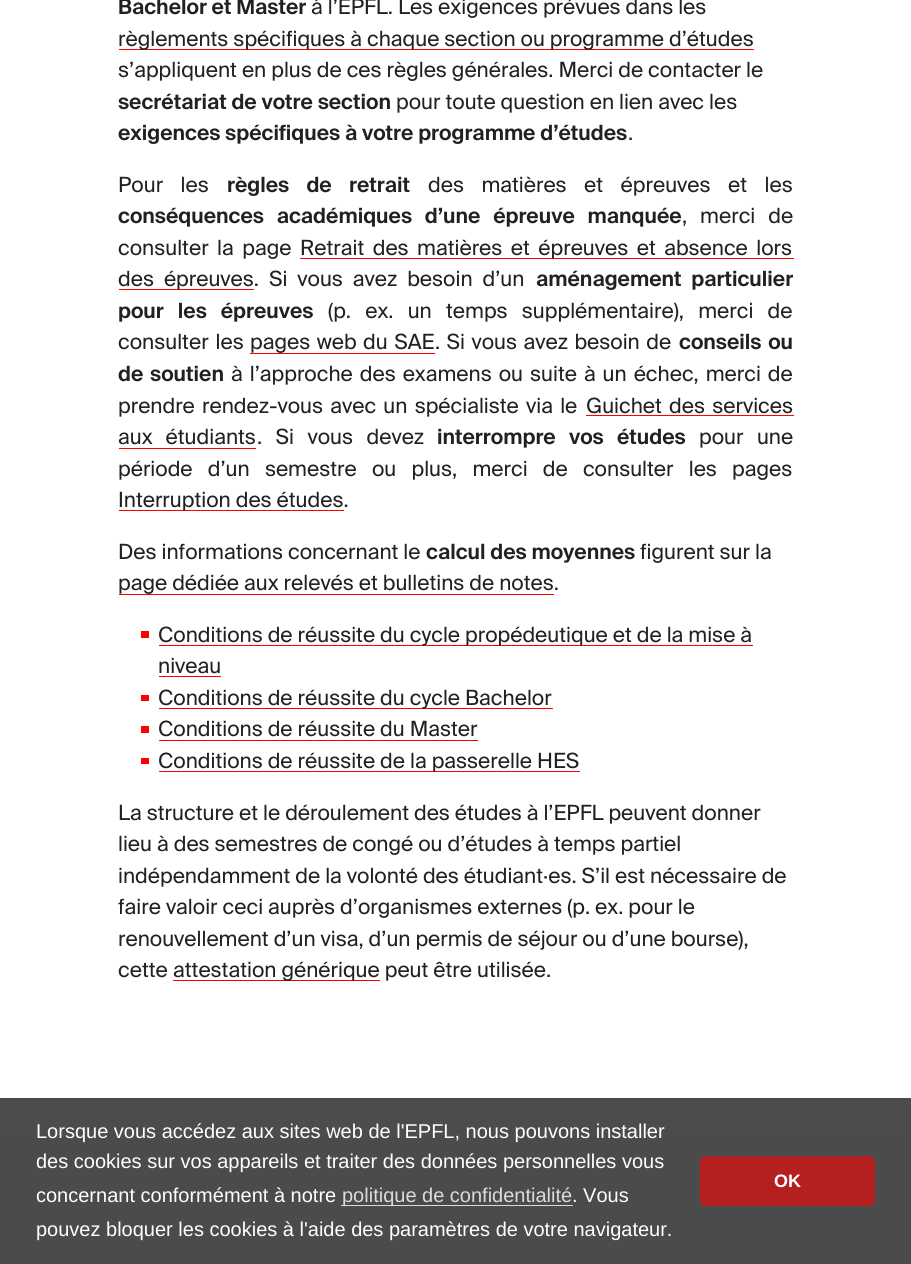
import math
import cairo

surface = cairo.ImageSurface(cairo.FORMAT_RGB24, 911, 1264)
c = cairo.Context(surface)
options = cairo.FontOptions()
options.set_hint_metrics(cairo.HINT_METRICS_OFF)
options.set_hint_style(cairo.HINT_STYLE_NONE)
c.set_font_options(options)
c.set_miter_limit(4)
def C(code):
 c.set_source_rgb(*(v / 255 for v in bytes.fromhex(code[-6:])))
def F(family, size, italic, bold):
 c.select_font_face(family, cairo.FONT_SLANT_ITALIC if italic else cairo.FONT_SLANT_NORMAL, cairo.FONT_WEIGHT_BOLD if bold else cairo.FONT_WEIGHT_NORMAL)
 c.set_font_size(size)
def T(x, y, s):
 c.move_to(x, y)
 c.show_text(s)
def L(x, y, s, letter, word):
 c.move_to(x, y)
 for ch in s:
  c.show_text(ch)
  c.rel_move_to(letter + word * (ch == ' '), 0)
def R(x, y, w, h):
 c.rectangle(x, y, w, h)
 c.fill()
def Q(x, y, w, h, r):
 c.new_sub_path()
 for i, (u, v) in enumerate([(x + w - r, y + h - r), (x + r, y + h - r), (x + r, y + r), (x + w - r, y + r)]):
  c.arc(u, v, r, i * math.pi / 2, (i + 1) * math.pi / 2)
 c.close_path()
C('ffffff')
c.paint()
C('4c4c4c')
R(0,1098,911,38)
F('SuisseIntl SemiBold',21,0,0)
C('212121')
T(118,14,'Bachelor et Master')
F('SuisseIntl',21,0,0)
T(311,14,'à l’EPFL. Les exigences prévues dans les')
C('ff0000')
R(119,49,635,1)
C('212121')
T(118,46,'règlements spécifiques à chaque section ou programme d’études')
T(118,77,'s’appliquent en plus de ces règles générales. Merci de contacter le')
F('SuisseIntl SemiBold',21,0,0)
T(118,109,'secrétariat de votre section')
F('SuisseIntl',21,0,0)
T(396,109,'pour toute question en lien avec les')
F('SuisseIntl SemiBold',21,0,0)
T(118,140,'exigences spécifiques à votre programme d’études')
F('SuisseIntl',21,0,0)
T(628,140,'.')
L(118,192,'Pour les',0,12.5)
F('SuisseIntl SemiBold',21,0,0)
L(227,192,'règles de retrait',0,12.5)
F('SuisseIntl',21,0,0)
L(428,192,'des matières et épreuves et les',0,12.5)
F('SuisseIntl SemiBold',21,0,0)
L(118,223,'conséquences académiques d’une épreuve manquée',0,8)
F('SuisseIntl',21,0,0)
L(682,223,', merci de',0,8)
L(118,255,'consulter la page',0,3.5)
C('ff0000')
R(300,258,494,1)
C('212121')
L(300,255,'Retrait des matières et épreuves et absence lors',0,3.5)
C('ff0000')
R(119,289,135,1)
C('212121')
L(118,286,'des épreuves. Si vous avez besoin d’un',0,5)
F('SuisseIntl SemiBold',21,0,0)
L(536,286,'aménagement particulier',0,5)
L(118,318,'pour les épreuves',0,9.25)
F('SuisseIntl',21,0,0)
L(328,318,'(p. ex. un temps supplémentaire), merci de',0,9.25)
L(118,349,'consulter les',0,2)
L(250,349,'pages web du SAE',0,1.5)
C('ff0000')
R(250,353,185,1)
C('212121')
L(435,349,'. Si vous avez besoin de',0,1.5)
F('SuisseIntl SemiBold',21,0,0)
L(679,349,'conseils ou',0,2)
L(118,381,'de soutien',0,2)
F('SuisseIntl',21,0,0)
L(231,381,'à l’approche des examens ou suite à un échec, merci de',0,2)
L(118,413,'prendre rendez-vous avec un spécialiste via le',0,2.25)
L(586,413,'Guichet des services',0,2.25)
C('ff0000')
R(586,415,208,1)
C('212121')
L(118,444,'aux étudiants',0,8)
C('ff0000')
R(119,448,137,1)
C('212121')
L(257,444,'. Si vous devez',0,8.5)
F('SuisseIntl SemiBold',21,0,0)
L(437,444,'interrompre vos études',0,8.5)
F('SuisseIntl',21,0,0)
L(699,444,'pour une',0,8.5)
L(118,476,'période d’un semestre ou plus, merci de consulter les pages',0,10.25)
C('ff0000')
R(119,510,225,1)
C('212121')
T(118,507,'Interruption des études.')
T(118,559,'Des informations concernant le')
F('SuisseIntl SemiBold',21,0,0)
T(426,559,'calcul des moyennes')
F('SuisseIntl',21,0,0)
T(640,559,'figurent sur la')
T(118,590,'page dédiée aux relevés et bulletins de notes.')
C('ff0000')
R(119,594,435,1)
R(141,631,8,7)
R(159,645,594,1)
C('212121')
T(158,642,'Conditions de réussite du cycle propédeutique et de la mise à')
T(158,673,'niveau')
C('ff0000')
R(159,676,62,1)
R(141,695,8,6)
R(159,708,394,1)
C('212121')
T(158,705,'Conditions de réussite du cycle Bachelor')
C('ff0000')
R(141,726,8,7)
C('212121')
T(158,736,'Conditions de réussite du Master')
C('ff0000')
R(159,740,319,1)
R(141,758,8,6)
R(159,771,421,1)
C('212121')
T(158,768,'Conditions de réussite de la passerelle HES')
T(118,820,'La structure et le déroulement des études à l’EPFL peuvent donner')
T(118,851,'lieu à des semestres de congé ou d’études à temps partiel')
T(118,883,'indépendamment de la volonté des étudiant·es. S’il est nécessaire de')
T(118,914,'faire valoir ceci auprès d’organismes externes (p. ex. pour le')
T(118,946,'renouvellement d’un visa, d’un permis de séjour ou d’une bourse),')
T(118,977,'cette')
C('ff0000')
R(173,980,207,1)
C('212121')
T(173,977,'attestation générique peut être utilisée.')
C('4b4b4b')
R(0,1136,911,128)
F('Liberation Sans',20,0,0)
C('ffffff')
T(36,1138,'Lorsque vous accédez aux sites web de l\'EPFL, nous pouvons installer')
T(36,1168,'des cookies sur vos appareils et traiter des données personnelles vous')
T(36,1202,'concernant conformément à notre')
C('dbdbdb')
R(341,1205,232,1)
T(342,1202,'politique de confidentialité')
C('ffffff')
T(572,1202,'. Vous')
T(36,1236,'pouvez bloquer les cookies à l\'aide des paramètres de votre navigateur.')
C('b51f1f')
Q(700,1156,175,50,6)
c.fill()
F('Liberation Sans',18,0,1)
C('ffffff')
T(774,1187,'OK')
surface.write_to_png('o.png')
